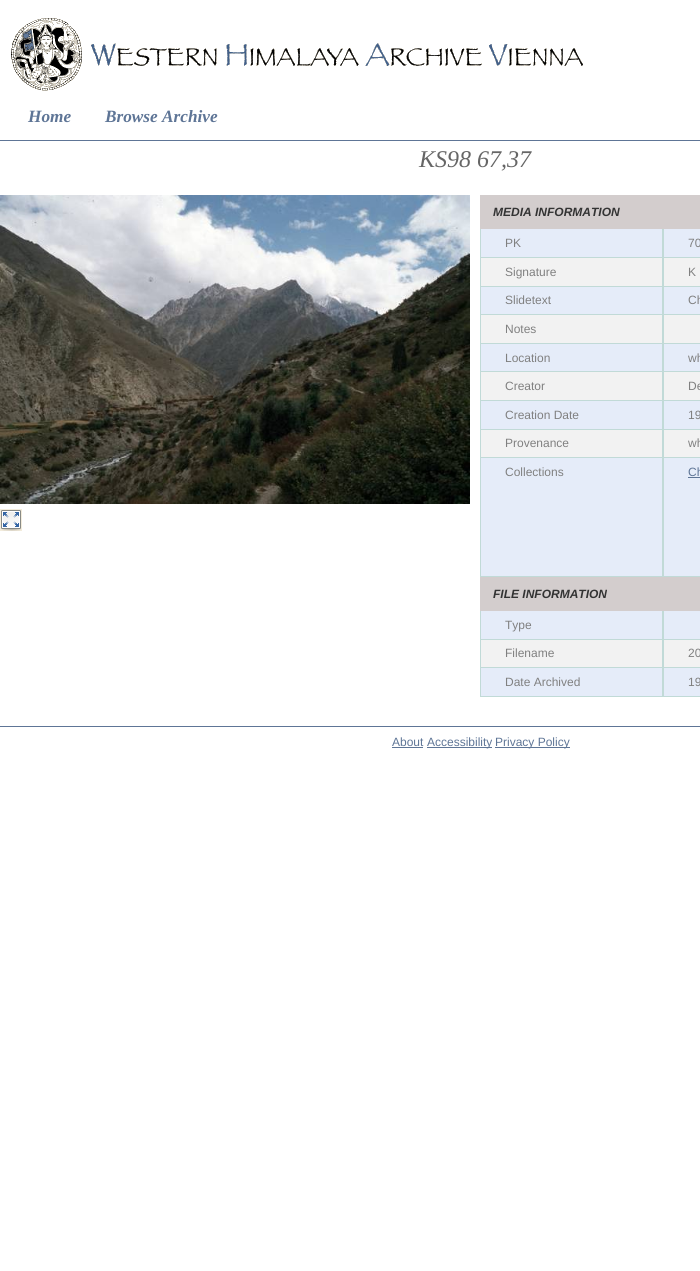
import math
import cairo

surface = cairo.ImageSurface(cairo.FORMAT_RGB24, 700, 1271)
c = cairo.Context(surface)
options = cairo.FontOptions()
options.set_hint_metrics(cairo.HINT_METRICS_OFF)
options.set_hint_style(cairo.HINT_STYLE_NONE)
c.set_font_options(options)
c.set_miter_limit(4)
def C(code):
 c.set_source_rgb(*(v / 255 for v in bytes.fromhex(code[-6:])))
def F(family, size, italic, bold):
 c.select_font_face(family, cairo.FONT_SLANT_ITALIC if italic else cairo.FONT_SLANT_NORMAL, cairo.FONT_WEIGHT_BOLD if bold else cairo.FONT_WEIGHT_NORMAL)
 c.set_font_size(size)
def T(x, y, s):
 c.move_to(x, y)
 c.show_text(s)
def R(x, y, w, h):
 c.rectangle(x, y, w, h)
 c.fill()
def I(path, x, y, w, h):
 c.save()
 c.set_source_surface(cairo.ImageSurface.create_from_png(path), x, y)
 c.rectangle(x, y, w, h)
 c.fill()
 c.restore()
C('ffffff')
c.paint()
C('5e7596')
R(0,140,700,1)
I('1.png',11,18,572,73)
F('Liberation Serif',17.25,1,1)
T(28,122,'Home')
T(105,122,'Browse Archive')
F('Liberation Serif',24,1,0)
C('666666')
T(419,167,'KS98 67,37')
I('2.png',0,195,470,309)
C('f3ecdc')
R(0,509,22,22)
I('3.png',1,510,20,21)
C('d3cdcd')
R(480,195,220,34)
F('Liberation Sans',12,1,1)
C('333333')
T(493,216,'MEDIA INFORMATION')
C('e5ecf9')
R(481,229,181,28)
C('c1dad7')
R(662,229,1,348)
R(480,257,220,1)
R(480,229,1,29)
F('Liberation Sans',12,0,0)
C('808080')
T(505,247,'PK')
C('e5ecf9')
R(664,229,36,28)
C('c1dad7')
R(663,229,1,29)
C('808080')
T(688,247,'70')
C('f2f2f2')
R(481,258,181,28)
C('c1dad7')
R(480,286,220,1)
R(480,258,1,29)
C('808080')
T(505,276,'Signature')
C('f2f2f2')
R(664,258,36,28)
C('c1dad7')
R(663,258,1,29)
C('808080')
T(688,276,'K')
C('e5ecf9')
R(481,287,181,27)
C('c1dad7')
R(480,314,220,1)
R(480,287,1,28)
C('808080')
T(505,304,'Slidetext')
C('e5ecf9')
R(664,287,36,27)
C('c1dad7')
R(663,287,1,28)
C('808080')
T(688,304,'Ch')
C('f2f2f2')
R(481,315,181,28)
C('c1dad7')
R(480,343,220,1)
R(480,315,1,29)
C('808080')
T(505,333,'Notes')
C('f2f2f2')
R(664,315,36,28)
C('c1dad7')
R(663,315,1,29)
C('e5ecf9')
R(481,344,181,27)
C('c1dad7')
R(480,371,220,1)
R(480,344,1,28)
C('808080')
T(505,362,'Location')
C('e5ecf9')
R(664,344,36,27)
C('c1dad7')
R(663,344,1,28)
C('808080')
T(688,362,'wh')
C('f2f2f2')
R(481,372,181,28)
C('c1dad7')
R(480,400,220,1)
R(480,372,1,29)
C('808080')
T(505,390,'Creator')
C('f2f2f2')
R(664,372,36,28)
C('c1dad7')
R(663,372,1,29)
C('808080')
T(688,390,'De')
C('e5ecf9')
R(481,401,181,28)
C('c1dad7')
R(480,429,220,1)
R(480,401,1,29)
C('808080')
T(505,419,'Creation Date')
C('e5ecf9')
R(664,401,36,28)
C('c1dad7')
R(663,401,1,29)
C('808080')
T(688,419,'19')
C('f2f2f2')
R(481,430,181,27)
C('c1dad7')
R(480,457,220,1)
R(480,430,1,28)
C('808080')
T(505,447,'Provenance')
C('f2f2f2')
R(664,430,36,27)
C('c1dad7')
R(663,430,1,28)
C('808080')
T(688,447,'wh')
C('e5ecf9')
R(481,458,181,118)
C('c1dad7')
R(480,576,220,1)
R(480,458,1,119)
C('808080')
T(505,476,'Collections')
C('e5ecf9')
R(664,458,36,118)
C('c1dad7')
R(663,458,1,119)
C('5e7596')
T(688,476,'Ch')
R(688,477,12,1)
C('d3cdcd')
R(480,577,220,34)
F('Liberation Sans',12,1,1)
C('333333')
T(493,598,'FILE INFORMATION')
C('e5ecf9')
R(481,611,181,28)
C('c1dad7')
R(662,611,1,86)
R(480,639,220,1)
R(480,611,1,29)
F('Liberation Sans',12,0,0)
C('808080')
T(505,629,'Type')
C('e5ecf9')
R(664,611,36,28)
C('c1dad7')
R(663,611,1,29)
C('f2f2f2')
R(481,640,181,27)
C('c1dad7')
R(480,667,220,1)
R(480,640,1,28)
C('808080')
T(505,657,'Filename')
C('f2f2f2')
R(664,640,36,27)
C('c1dad7')
R(663,640,1,28)
C('808080')
T(688,657,'20')
C('e5ecf9')
R(481,668,181,28)
C('c1dad7')
R(480,696,220,1)
R(480,668,1,29)
C('808080')
T(505,686,'Date Archived')
C('e5ecf9')
R(664,668,36,28)
C('c1dad7')
R(663,668,1,29)
C('808080')
T(688,686,'19')
C('5e7596')
R(0,726,700,1)
T(392,746,'About')
R(392,747,31,1)
R(427,747,65,1)
T(427,746,'Accessibility')
R(495,747,75,1)
T(495,746,'Privacy Policy')
surface.write_to_png('o.png')
